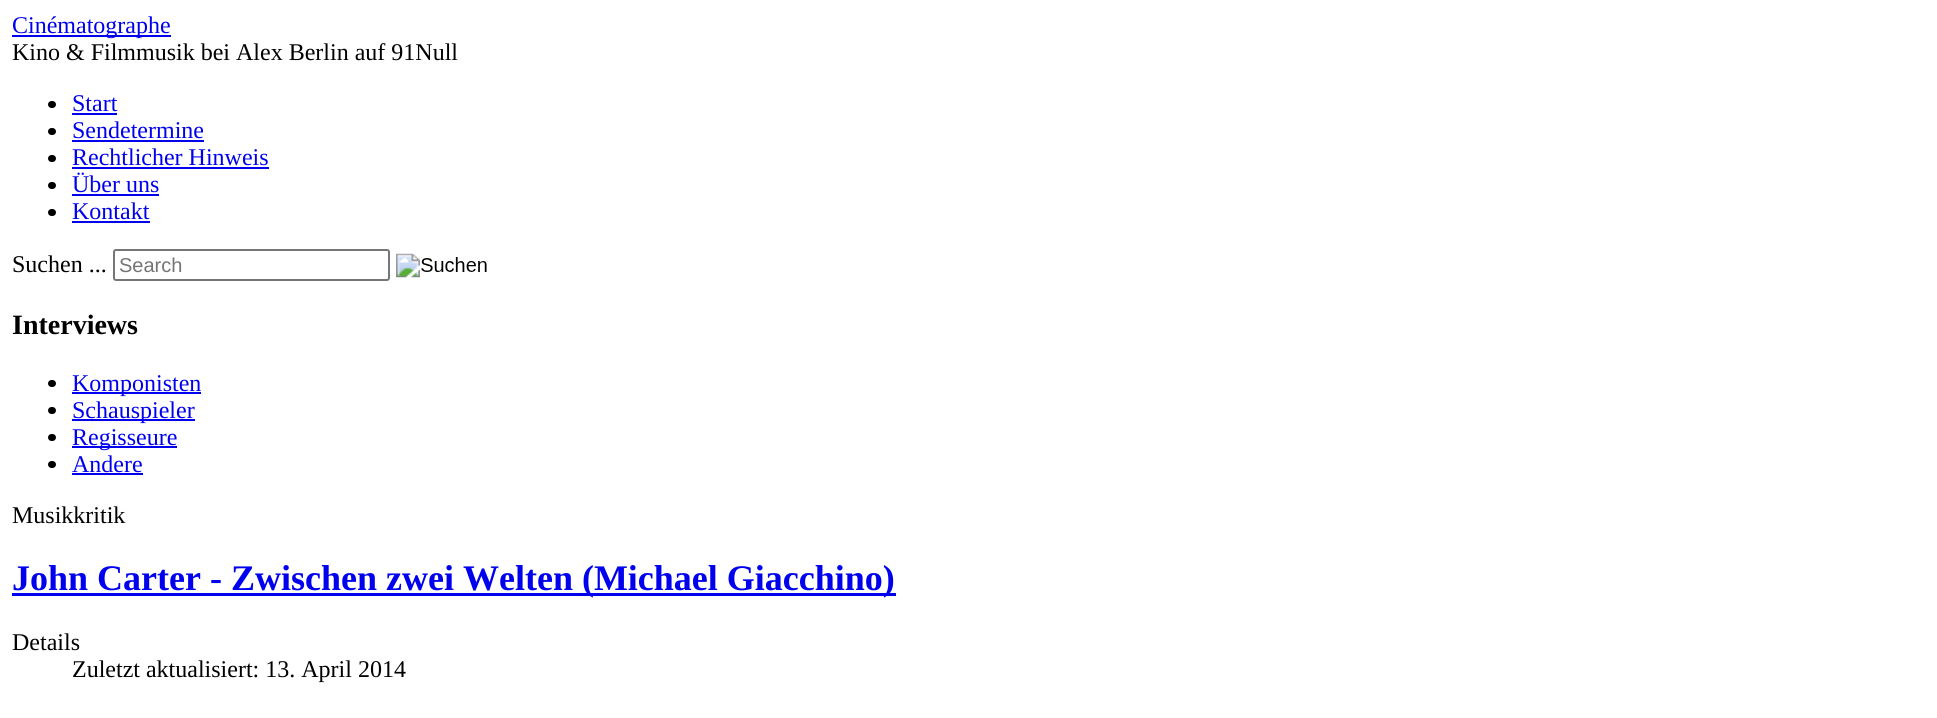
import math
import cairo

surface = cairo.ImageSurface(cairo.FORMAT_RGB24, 1937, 718)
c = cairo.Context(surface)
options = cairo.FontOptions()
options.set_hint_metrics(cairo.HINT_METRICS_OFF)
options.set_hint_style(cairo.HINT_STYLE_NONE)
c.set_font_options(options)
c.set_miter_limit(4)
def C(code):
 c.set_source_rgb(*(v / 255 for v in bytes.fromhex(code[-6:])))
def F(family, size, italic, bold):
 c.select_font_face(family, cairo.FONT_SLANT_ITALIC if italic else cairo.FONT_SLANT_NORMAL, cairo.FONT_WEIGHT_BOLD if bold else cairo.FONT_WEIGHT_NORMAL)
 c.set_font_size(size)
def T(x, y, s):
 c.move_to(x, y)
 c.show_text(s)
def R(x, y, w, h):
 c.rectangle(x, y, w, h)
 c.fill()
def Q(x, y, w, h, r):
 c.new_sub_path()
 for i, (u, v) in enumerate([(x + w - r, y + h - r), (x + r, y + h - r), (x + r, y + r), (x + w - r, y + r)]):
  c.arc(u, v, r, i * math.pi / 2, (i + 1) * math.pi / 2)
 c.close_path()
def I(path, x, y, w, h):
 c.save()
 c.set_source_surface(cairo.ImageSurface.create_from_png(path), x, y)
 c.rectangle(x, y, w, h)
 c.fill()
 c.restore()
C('ffffff')
c.paint()
C('0000ee')
R(12,35,159,2)
F('Liberation Serif',24,0,0)
T(12,33,'Cinématographe')
C('000000')
T(12,60,'Kino & Filmmusik bei Alex Berlin auf 91Null')
Q(48,101,8,7,3.5)
c.fill()
C('0000ee')
T(72,111,'Start')
R(72,113,45,2)
C('000000')
Q(48,128,8,7,3.5)
c.fill()
C('0000ee')
T(72,138,'Sendetermine')
R(72,140,132,2)
C('000000')
Q(48,155,8,7,3.5)
c.fill()
C('0000ee')
T(72,165,'Rechtlicher Hinweis')
R(72,167,197,2)
C('000000')
Q(48,182,8,7,3.5)
c.fill()
C('0000ee')
T(72,192,'Über uns')
R(72,194,87,2)
C('000000')
Q(48,209,8,7,3.5)
c.fill()
C('0000ee')
T(72,219,'Kontakt')
R(72,221,78,2)
C('000000')
T(12,272,'Suchen ...')
Q(114,250,275,30,2)
C('767676')
c.stroke()
F('Liberation Sans',20,0,0)
C('757575')
T(119,272,'Search')
I('1.png',396,253,91,25)
F('Liberation Serif',28,0,1)
C('000000')
T(12,334,'Interviews')
Q(48,380,8,7,3.5)
c.fill()
C('0000ee')
R(72,392,129,2)
F('Liberation Serif',24,0,0)
T(72,391,'Komponisten')
C('000000')
Q(48,407,8,7,3.5)
c.fill()
C('0000ee')
R(72,419,123,2)
T(72,418,'Schauspieler')
C('000000')
Q(48,434,8,7,3.5)
c.fill()
C('0000ee')
R(72,446,105,2)
T(72,445,'Regisseure')
C('000000')
Q(48,461,8,7,3.5)
c.fill()
C('0000ee')
T(72,472,'Andere')
R(72,473,71,2)
C('000000')
T(12,523,'Musikkritik')
C('0000ee')
R(12,593,884,3)
F('Liberation Serif',36,0,1)
T(12,590,'John Carter - Zwischen zwei Welten (Michael Giacchino)')
F('Liberation Serif',24,0,0)
C('000000')
T(12,650,'Details')
T(72,677,'Zuletzt aktualisiert: 13. April 2014')
surface.write_to_png('o.png')
